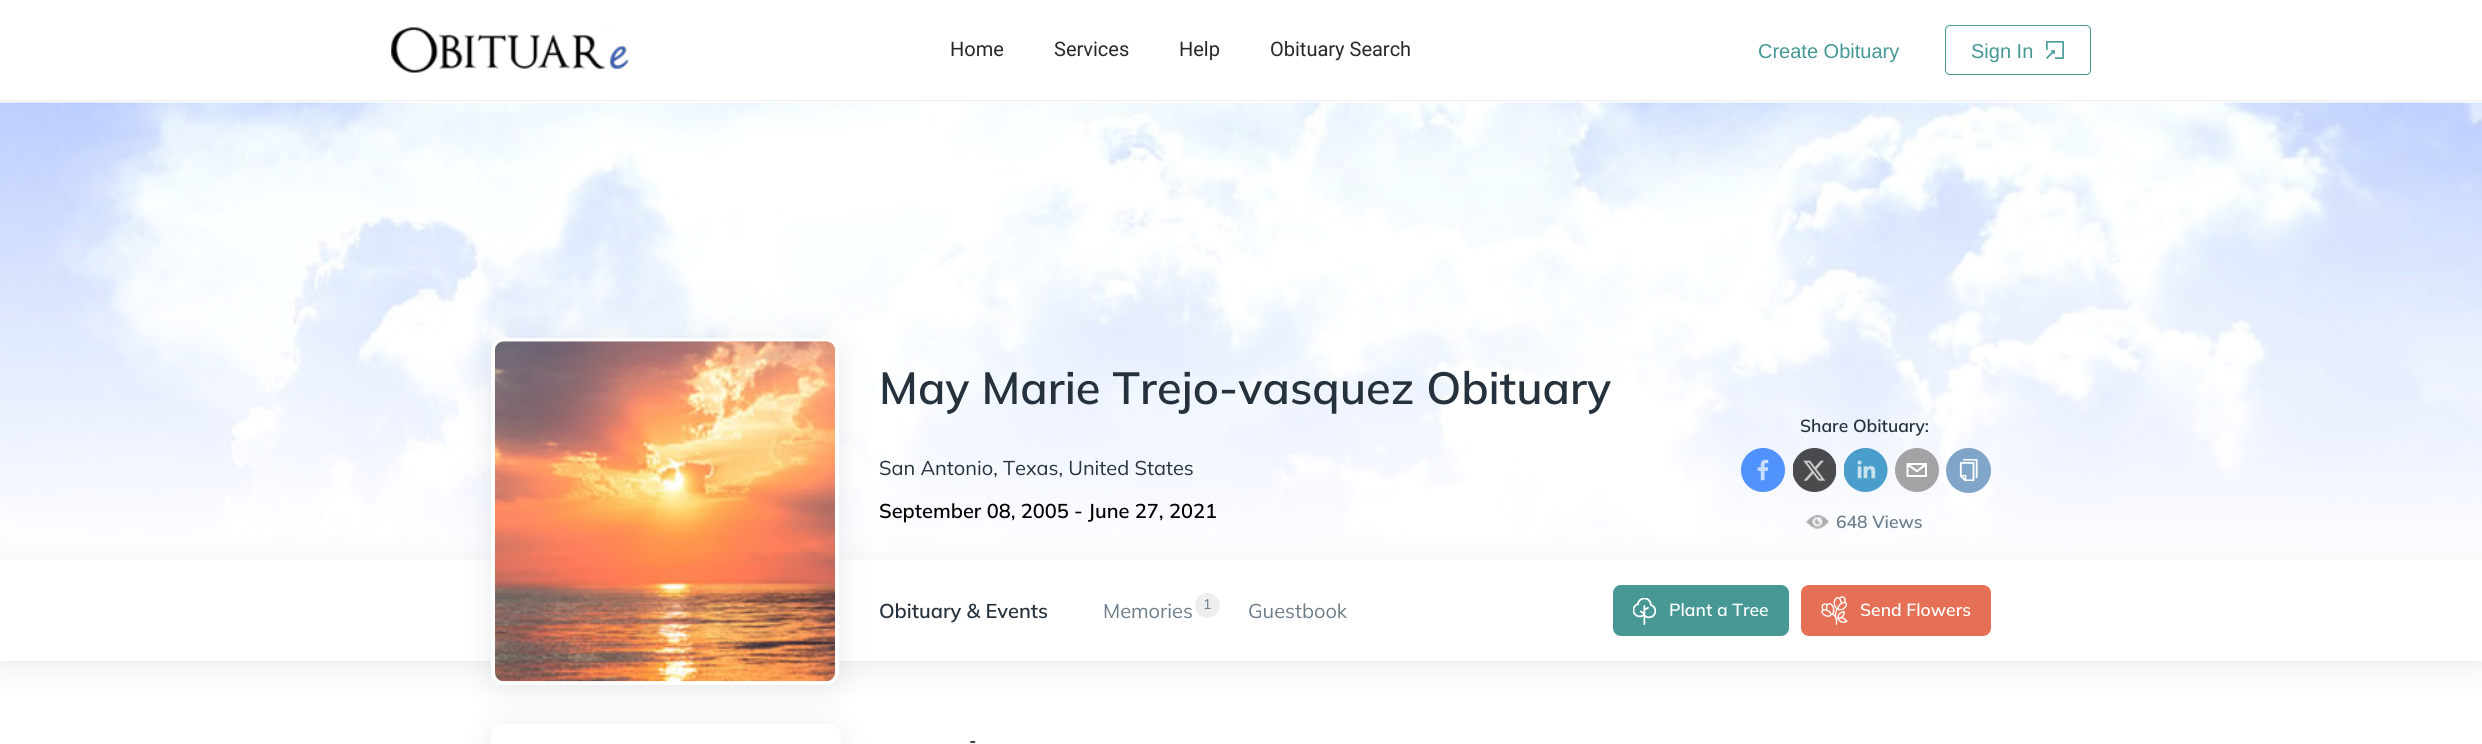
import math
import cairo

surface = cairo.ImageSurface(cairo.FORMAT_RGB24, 2482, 744)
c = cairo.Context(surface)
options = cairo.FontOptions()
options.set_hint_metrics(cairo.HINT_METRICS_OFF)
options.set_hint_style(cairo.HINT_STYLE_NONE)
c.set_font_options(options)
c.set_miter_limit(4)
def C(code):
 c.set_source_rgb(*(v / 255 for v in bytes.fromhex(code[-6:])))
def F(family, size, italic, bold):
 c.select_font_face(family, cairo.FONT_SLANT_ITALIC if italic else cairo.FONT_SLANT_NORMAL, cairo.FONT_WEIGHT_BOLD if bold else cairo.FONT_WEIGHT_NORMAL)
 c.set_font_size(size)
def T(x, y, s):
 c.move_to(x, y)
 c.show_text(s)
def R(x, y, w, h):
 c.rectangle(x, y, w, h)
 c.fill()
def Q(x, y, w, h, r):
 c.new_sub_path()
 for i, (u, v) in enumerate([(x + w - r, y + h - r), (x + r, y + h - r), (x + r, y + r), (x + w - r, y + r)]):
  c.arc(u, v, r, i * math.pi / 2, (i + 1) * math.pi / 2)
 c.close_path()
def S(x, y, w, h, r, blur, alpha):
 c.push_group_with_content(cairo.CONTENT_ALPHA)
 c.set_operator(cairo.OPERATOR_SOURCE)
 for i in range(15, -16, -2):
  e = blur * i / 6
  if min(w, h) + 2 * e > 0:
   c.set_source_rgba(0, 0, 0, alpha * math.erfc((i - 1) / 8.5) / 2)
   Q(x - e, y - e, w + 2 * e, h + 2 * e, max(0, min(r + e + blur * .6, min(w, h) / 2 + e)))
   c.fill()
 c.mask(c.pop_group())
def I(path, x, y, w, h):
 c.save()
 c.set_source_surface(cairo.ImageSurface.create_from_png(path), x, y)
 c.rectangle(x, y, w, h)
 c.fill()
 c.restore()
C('ffffff')
c.paint()
C('eeeeee')
R(0,100,2482,1)
I('1.png',391,27,238,46)
F('Roboto',20,0,0)
C('282828')
T(950,56,'Home')
T(1054,56,'Services')
T(1179,56,'Help')
T(1270,56,'Obituary Search')
F('Liberation Sans',20,0,0)
C('439794')
T(1758,58,'Create Obituary')
Q(1945.5,25.5,145,49,4.5)
c.set_line_width(1)
c.stroke()
T(1971,58,'Sign In')
I('2.png',2046,41,18,18)
I('3.png',0,102,2482,458)
F('Mulish SemiBold',45,0,0)
C('25313c')
T(879,404,'May Marie Trejo-vasquez Obituary')
F('Mulish',20,0,0)
T(879,475,'San Antonio, Texas, United States')
F('Mulish SemiBold',20,0,0)
C('000000')
T(879,518,'September 08, 2005 - June 27, 2021')
F('Mulish SemiBold',17.5,0,0)
C('25313c')
T(1800,432,'Share Obituary:')
I('4.png',1741,448,44,44)
I('5.png',1793,448,43,44)
I('6.png',1844,448,44,44)
c.set_source_rgba(0.498,0.498,0.498,0.7)
c.arc(1917,470,22,0,2 * math.pi)
c.fill()
C('fcfdff')
c.new_path()
c.move_to(1906.5,463)
c.line_to(1906.5,477)
c.line_to(1927,477)
c.line_to(1927,463)
c.close_path()
c.move_to(1923,465)
c.line_to(1917,470)
c.line_to(1910.5,465)
c.close_path()
c.move_to(1908.5,475)
c.line_to(1908.5,466.5)
c.line_to(1917,472.5)
c.line_to(1925,466.5)
c.line_to(1925,475)
c.close_path()
c.fill()
C('81a5c9')
c.arc(1968.5,470.5,22.5,0,2 * math.pi)
c.fill()
I('7.png',1959,459,19,22)
I('8.png',1806,514,23,15)
C('6d7d8b')
T(1836,528,'648 Views')
c.save()
c.set_fill_rule(cairo.FILL_RULE_EVEN_ODD)
c.new_path()
c.move_to(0,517)
c.line_to(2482,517)
c.line_to(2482,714)
c.line_to(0,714)
c.close_path()
c.move_to(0,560)
c.line_to(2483,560)
c.line_to(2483,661)
c.line_to(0,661)
c.close_path()
c.clip()
C('193147')
S(0,565,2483,101,0,15.5,.1)
c.restore()
C('193147')
S(491,729,350,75,13,15.5,.1)
C('ffffff')
Q(491,724,350,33,13)
c.fill()
C('193147')
S(491,343,348,347,13,15.5,.1)
Q(493,340,344,343,11)
C('ffffff')
c.set_line_width(4)
c.stroke()
I('9.png',495,341,340,341)
F('Mulish SemiBold',20,0,0)
C('25313c')
T(879,618,'Obituary & Events')
F('Mulish',20,0,0)
C('6d7d8b')
T(1103,618,'Memories')
C('eeeeee')
c.new_path()
c.arc(1207.5,605.5,12.5,0,2 * math.pi)
c.fill()
F('Mulish',14,0,0)
C('6d7d8b')
T(1203,609,'1')
F('Mulish',20,0,0)
T(1248,618,'Guestbook')
C('479794')
Q(1613,585,176,51,8)
c.fill()
I('10.png',1633,598,23,27)
F('Mulish SemiBold',17.5,0,0)
C('ffffff')
T(1669,616,'Plant a Tree')
C('e57056')
Q(1801,585,190,51,8)
c.fill()
I('11.png',1821,596,27,29)
C('ffffff')
T(1860,616,'Send Flowers')
F('Roboto',20,0,0)
C('000000')
T(970,748,'-')
surface.write_to_png('o.png')
